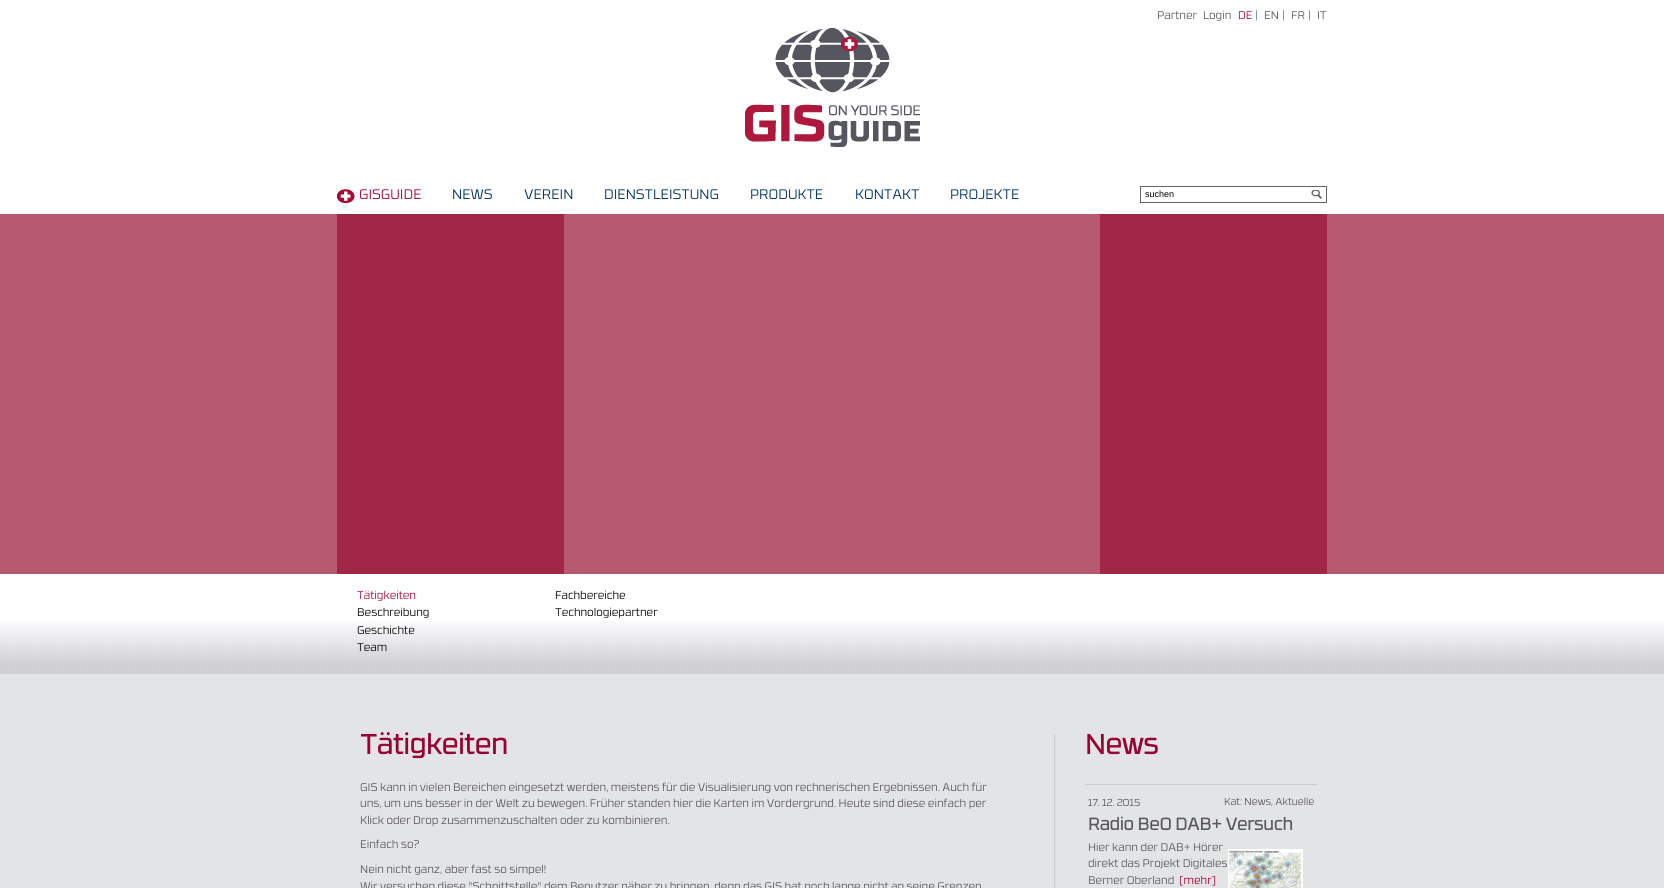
import math
import cairo

surface = cairo.ImageSurface(cairo.FORMAT_RGB24, 1664, 888)
c = cairo.Context(surface)
options = cairo.FontOptions()
options.set_hint_metrics(cairo.HINT_METRICS_OFF)
options.set_hint_style(cairo.HINT_STYLE_NONE)
c.set_font_options(options)
c.set_miter_limit(4)
def C(code):
 c.set_source_rgb(*(v / 255 for v in bytes.fromhex(code[-6:])))
def F(family, size, italic, bold):
 c.select_font_face(family, cairo.FONT_SLANT_ITALIC if italic else cairo.FONT_SLANT_NORMAL, cairo.FONT_WEIGHT_BOLD if bold else cairo.FONT_WEIGHT_NORMAL)
 c.set_font_size(size)
def T(x, y, s):
 c.move_to(x, y)
 c.show_text(s)
def R(x, y, w, h):
 c.rectangle(x, y, w, h)
 c.fill()
def I(path, x, y, w, h):
 c.save()
 c.set_source_surface(cairo.ImageSurface.create_from_png(path), x, y)
 c.rectangle(x, y, w, h)
 c.fill()
 c.restore()
C('e3e4e5')
c.paint()
C('ffffff')
R(0,0,1664,621)
F('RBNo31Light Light',11,0,0)
C('58585a')
T(1157,19,'Partner')
T(1203,19,'Login')
C('a70932')
T(1238,19,'DE')
C('58585a')
T(1255,19,'|')
T(1264,19,'EN')
T(1282,19,'|')
T(1291,19,'FR')
T(1308,19,'|')
T(1317,19,'IT')
I('1.png',745,28,175,119)
I('2.png',337,189,18,14)
F('RBNo31Light Light',13.75,0,0)
C('a70932')
T(359,199,'GISGUIDE')
C('003366')
T(452,199,'NEWS')
T(524,199,'VEREIN')
T(604,199,'DIENSTLEISTUNG')
T(750,199,'PRODUKTE')
T(855,199,'KONTAKT')
T(950,199,'PROJEKTE')
c.rectangle(1140.5,186.5,186,16)
C('666666')
c.set_line_width(1)
c.stroke()
F('Liberation Sans',9,0,0)
C('000000')
T(1145,197,'suchen')
I('3.png',1311,189,11,10)
C('b75a71')
R(0,214,1664,360)
C('a02745')
R(337,214,227,360)
R(1100,214,227,360)
I('4.png',0,621,1664,53)
F('RBNo31Light Light',11,0,0)
C('a70932')
T(357,599,'Tätigkeiten')
C('000000')
T(357,616,'Beschreibung')
T(357,634,'Geschichte')
T(357,651,'Team')
T(555,599,'Fachbereiche')
T(555,616,'Technologiepartner')
C('cccccc')
R(1054,734,1,154)
F('RBNo31Light',27.5,0,1)
C('990033')
T(360,754,'Tätigkeiten')
F('RBNo31Light Light',11,0,0)
C('58585a')
T(360,791,'GIS kann in vielen Bereichen eingesetzt werden, meistens für die Visualisierung von rechnerischen Ergebnissen. Auch für')
T(360,807,'uns, um uns besser in der Welt zu bewegen. Früher standen hier die Karten im Vordergrund. Heute sind diese einfach per')
T(360,824,'Klick oder Drop zusammenzuschalten oder zu kombinieren.')
T(360,848,'Einfach so?')
T(360,873,'Nein nicht ganz, aber fast so simpel!')
T(360,890,'Wir versuchen diese "Schnittstelle" dem Benutzer näher zu bringen, denn das GIS hat noch lange nicht an seine Grenzen')
F('RBNo31Light',27.5,0,1)
C('990033')
T(1085,754,'News')
C('cccccc')
R(1085,784,232,1)
F('RBNo31Light Light',10,0,0)
C('58585a')
T(1088,806,'17. 12. 2015')
T(1224,805,'Kat: News, Aktuelle')
F('RBNo31Light',17,0,1)
T(1088,830,'Radio BeO DAB+ Versuch')
F('RBNo31Light Light',11,0,0)
T(1088,851,'Hier kann der DAB+ Hörer')
T(1088,867,'direkt das Projekt Digitales')
T(1088,884,'Berner Oberland')
C('990033')
T(1179,884,'[mehr]')
I('5.png',1228,849,75,39)
surface.write_to_png('o.png')
